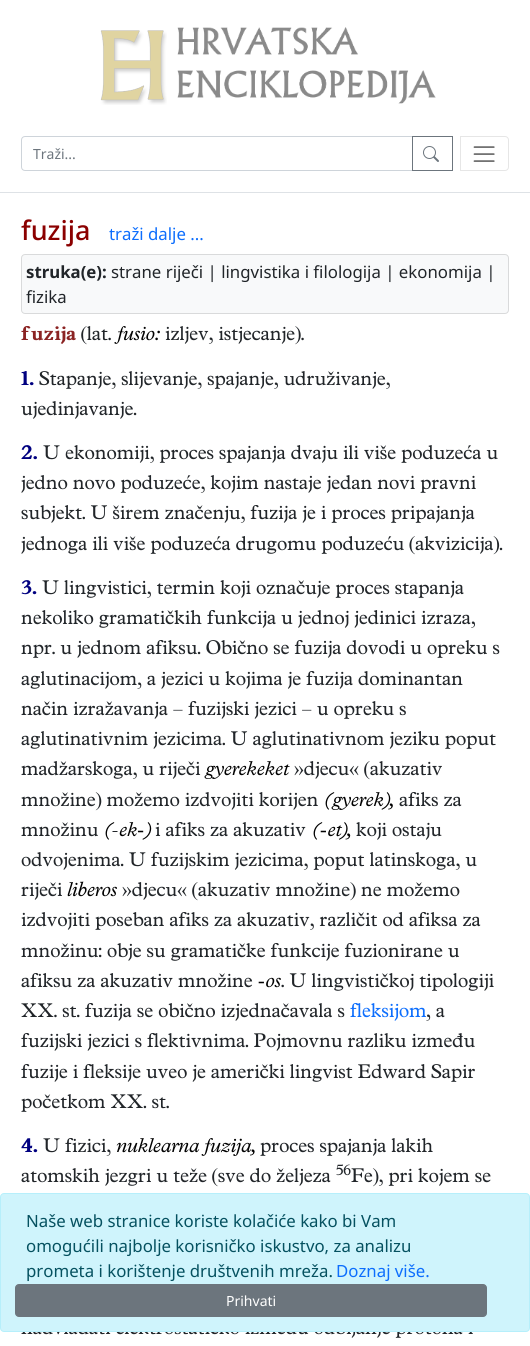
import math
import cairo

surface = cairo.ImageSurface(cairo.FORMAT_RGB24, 530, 1346)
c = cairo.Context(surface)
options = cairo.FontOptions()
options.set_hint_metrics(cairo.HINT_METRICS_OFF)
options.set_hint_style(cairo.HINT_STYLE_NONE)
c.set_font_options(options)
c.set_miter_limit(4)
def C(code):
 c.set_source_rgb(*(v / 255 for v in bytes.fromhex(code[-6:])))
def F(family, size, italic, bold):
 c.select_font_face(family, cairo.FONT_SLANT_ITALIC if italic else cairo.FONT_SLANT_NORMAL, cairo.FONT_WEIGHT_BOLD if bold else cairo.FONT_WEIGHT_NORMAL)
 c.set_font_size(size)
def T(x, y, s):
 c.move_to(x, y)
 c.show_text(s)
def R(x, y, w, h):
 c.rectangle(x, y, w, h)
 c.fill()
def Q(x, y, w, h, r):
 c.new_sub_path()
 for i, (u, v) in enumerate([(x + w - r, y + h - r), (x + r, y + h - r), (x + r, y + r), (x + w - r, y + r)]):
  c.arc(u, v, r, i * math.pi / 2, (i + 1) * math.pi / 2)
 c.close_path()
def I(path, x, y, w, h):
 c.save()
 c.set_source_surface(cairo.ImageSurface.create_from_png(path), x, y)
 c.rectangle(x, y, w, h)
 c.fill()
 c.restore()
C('ffffff')
c.paint()
I('1.png',100,30,67,75)
I('2.png',177,27,259,77)
C('dee2e6')
R(0,192,530,1)
c.new_path()
c.move_to(25,136.5)
c.line_to(412.5,136.5)
c.line_to(412.5,170.5)
c.line_to(25,170.5)
c.curve_to(23,170.5,21.5,169,21.5,167)
c.line_to(21.5,140)
c.curve_to(21.5,138,23,136.5,25,136.5)
c.close_path()
C('ced4da')
c.set_line_width(1)
c.stroke()
F('Noto Sans',14,0,0)
C('6c757d')
T(33,159,'Traži...')
c.rectangle(412.5,136.5,40,34)
c.stroke()
I('3.png',423,146,16,16)
c.new_path()
c.move_to(460.5,136.5)
c.line_to(505,136.5)
c.curve_to(507,136.5,508.5,138,508.5,140)
c.line_to(508.5,167)
c.curve_to(508.5,169,507,170.5,505,170.5)
c.line_to(460.5,170.5)
c.close_path()
C('e6e6e6')
c.stroke()
I('4.png',473,146,22,16)
F('Noto Sans Medium',27,0,0)
C('8b0000')
T(21,240,'fuzija')
F('Noto Sans',16.8,0,0)
C('0d6efd')
T(109,240,'traži dalje ...')
C('f8f9fa')
Q(21.5,254.5,487,59,3.5)
c.fill_preserve()
C('d9dadb')
c.stroke()
F('Noto Sans',16.8,0,1)
C('212529')
T(26,278,'struka(e):')
F('Noto Sans',16.8,0,0)
T(111,278,'strane riječi | lingvistika i filologija | ekonomija |')
T(26,303,'fizika')
I('5.png',21,326,55,18)
I('6.png',81,326,30,19)
I('7.png',114,326,46,18)
I('8.png',165,326,139,19)
I('9.png',21,371,13,15)
I('10.png',39,371,351,18)
I('11.png',21,401,116,18)
I('12.png',21,445,16,15)
I('13.png',43,445,455,18)
I('14.png',21,475,455,18)
I('15.png',21,505,454,18)
I('16.png',21,536,482,19)
I('17.png',21,580,16,15)
I('18.png',42,580,422,18)
I('19.png',21,610,454,18)
I('20.png',21,640,479,18)
I('21.png',21,671,442,18)
I('22.png',21,701,385,18)
I('23.png',21,731,475,18)
I('24.png',21,761,180,18)
I('25.png',204,761,86,18)
I('26.png',294,761,148,19)
I('27.png',21,792,297,19)
I('28.png',325,792,68,18)
I('29.png',399,792,63,15)
I('30.png',21,822,77,15)
I('31.png',105,822,10,18)
I('32.png',119,822,33,18)
I('33.png',155,822,151,15)
I('34.png',313,822,38,18)
I('35.png',356,822,86,18)
c.new_path()
c.move_to(112.5,832)
c.line_to(112.5,831)
c.line_to(117.5,831)
c.line_to(117.5,832)
c.close_path()
c.fill()
I('36.png',21,852,456,18)
I('37.png',21,882,41,18)
I('38.png',67,881,50,16)
I('39.png',122,882,338,19)
I('40.png',21,912,460,18)
I('41.png',21,943,439,18)
I('42.png',21,973,232,15)
I('43.png',258,977,23,11)
I('44.png',281,973,213,18)
I('45.png',21,1003,324,18)
I('46.png',350,1003,77,18)
I('47.png',426,1007,19,14)
I('48.png',21,1033,454,18)
I('49.png',21,1064,454,18)
I('50.png',21,1094,148,18)
I('51.png',21,1138,17,15)
I('52.png',43,1138,68,18)
I('53.png',116,1138,139,18)
I('54.png',260,1138,173,18)
I('55.png',21,1168,310,19)
I('56.png',336,1164,15,12)
I('57.png',351,1168,140,19)
I('58.png',21,1332,452,6)
C('cff4fc')
Q(.5,1193.5,529,138,3.5)
c.fill_preserve()
C('b6effb')
c.stroke()
C('055160')
T(26,1227,'Naše web stranice koriste kolačiće kako bi Vam')
T(26,1252,'omogućili najbolje korisničko iskustvo, za analizu')
T(26,1277,'prometa i korištenje društvenih mreža.')
C('0d6efd')
T(336,1277,'Doznaj više.')
C('6c757d')
Q(15.5,1284.5,471,32,3.5)
c.fill_preserve()
c.stroke()
F('Noto Sans',14,0,0)
C('ffffff')
T(226,1306,'Prihvati')
surface.write_to_png('o.png')
